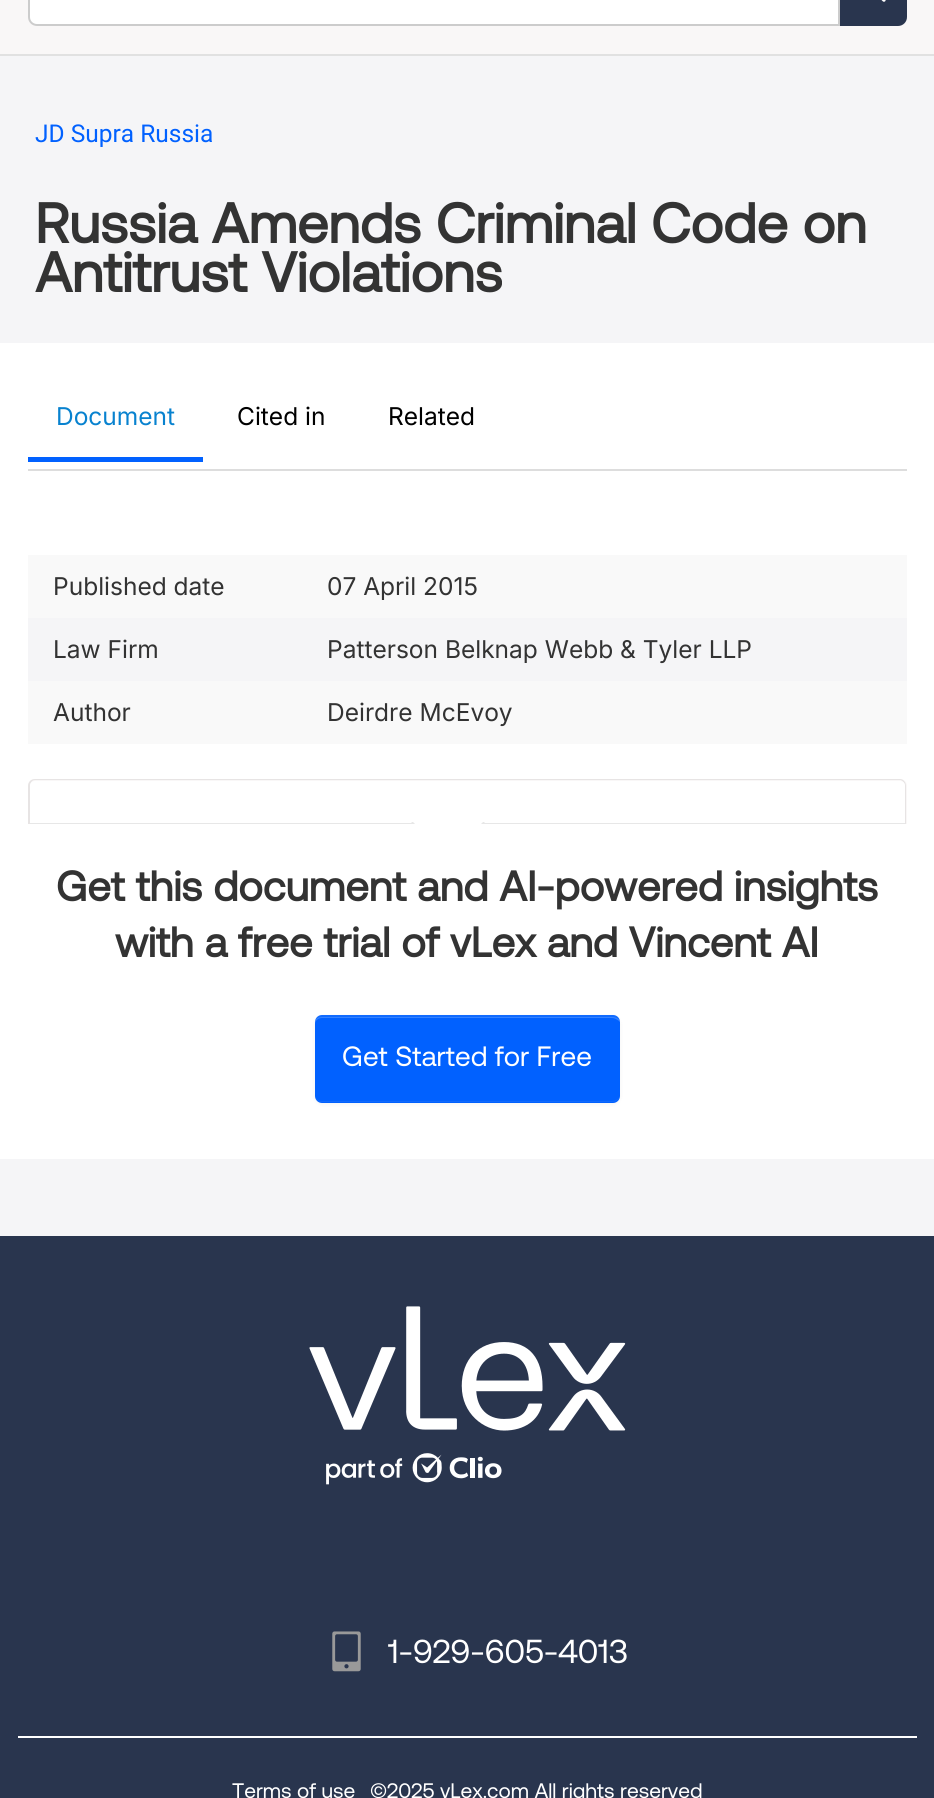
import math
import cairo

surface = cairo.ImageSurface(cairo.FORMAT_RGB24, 934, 1798)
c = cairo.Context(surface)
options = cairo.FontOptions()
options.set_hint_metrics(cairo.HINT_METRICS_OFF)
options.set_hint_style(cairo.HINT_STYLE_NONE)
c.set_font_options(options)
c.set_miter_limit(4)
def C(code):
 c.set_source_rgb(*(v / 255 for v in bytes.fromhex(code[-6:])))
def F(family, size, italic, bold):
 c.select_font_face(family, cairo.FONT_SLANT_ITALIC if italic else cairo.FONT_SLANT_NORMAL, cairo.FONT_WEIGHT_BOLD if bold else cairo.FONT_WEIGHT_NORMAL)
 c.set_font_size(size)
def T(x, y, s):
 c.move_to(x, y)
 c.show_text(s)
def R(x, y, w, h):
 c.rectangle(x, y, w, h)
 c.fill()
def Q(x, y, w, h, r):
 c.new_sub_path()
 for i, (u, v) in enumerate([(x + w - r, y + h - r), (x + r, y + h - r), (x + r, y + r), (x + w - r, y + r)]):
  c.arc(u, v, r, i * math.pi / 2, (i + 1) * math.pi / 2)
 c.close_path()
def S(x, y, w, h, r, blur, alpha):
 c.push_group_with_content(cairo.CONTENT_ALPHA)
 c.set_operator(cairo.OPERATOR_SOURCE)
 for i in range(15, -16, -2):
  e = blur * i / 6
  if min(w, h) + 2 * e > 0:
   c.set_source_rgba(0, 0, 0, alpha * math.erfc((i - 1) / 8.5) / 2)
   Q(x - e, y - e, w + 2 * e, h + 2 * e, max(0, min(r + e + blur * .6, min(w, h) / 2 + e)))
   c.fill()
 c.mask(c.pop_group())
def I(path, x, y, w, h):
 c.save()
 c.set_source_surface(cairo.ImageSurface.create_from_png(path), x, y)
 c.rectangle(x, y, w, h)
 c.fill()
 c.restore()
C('f5f5f7')
c.paint()
C('f9f7f7')
R(0,0,934,54)
C('e1e1e1')
R(0,54,934,2)
C('ffffff')
c.new_path()
c.move_to(37,-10)
c.line_to(839,-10)
c.line_to(839,25)
c.line_to(37,25)
c.curve_to(32.5,25,29,21.5,29,17)
c.line_to(29,-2)
c.curve_to(29,-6.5,32.5,-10,37,-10)
c.close_path()
c.fill_preserve()
C('cccccc')
c.stroke()
C('29354e')
c.new_path()
c.move_to(840,-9)
c.line_to(898,-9)
c.curve_to(903,-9,907,-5,907,0)
c.line_to(907,17)
c.curve_to(907,22,903,26,898,26)
c.line_to(840,26)
c.close_path()
c.fill()
I('1.png',881,0,5,2)
F('Roboto',24.5,0,0)
C('0161ff')
T(35,142,'JD Supra Russia')
F('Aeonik',56,0,1)
C('333333')
T(35,243,'Russia Amends Criminal Code on')
T(35,292,'Antitrust Violations')
C('ffffff')
R(0,343,934,816)
C('dddddd')
R(28,469,879,2)
F('Inter',24.5,0,0)
C('0882cf')
T(56,425,'Document')
C('0161ff')
R(28,457,175,5)
C('000000')
T(237,425,'Cited in')
T(388,425,'Related')
C('f9f9f9')
R(28,555,879,63)
C('333333')
T(53,595,'Published date')
T(327,595,'07 April 2015')
C('f5f5f7')
R(28,618,879,63)
C('333333')
T(53,658,'Law Firm')
T(327,658,'Patterson Belknap Webb & Tyler LLP')
C('f9f9f9')
R(28,681,879,63)
C('333333')
T(53,721,'Author')
T(327,721,'Deirdre McEvoy')
C('f9f7f7')
c.new_path()
c.move_to(35,779)
c.line_to(900,779)
c.curve_to(904,779,907,782,907,786)
c.line_to(907,824)
c.line_to(28,824)
c.line_to(28,786)
c.curve_to(28,782,31,779,35,779)
c.close_path()
c.fill()
C('e7e4e4')
c.set_fill_rule(cairo.FILL_RULE_EVEN_ODD)
c.new_path()
c.move_to(35,779)
c.line_to(900,779)
c.curve_to(903,779,906,782,906,786)
c.line_to(906,824)
c.line_to(28,824)
c.line_to(28,786)
c.curve_to(28,782,31,779,35,779)
c.close_path()
c.move_to(35,780)
c.line_to(900,780)
c.curve_to(902,780,905,783,905,786)
c.line_to(905,824)
c.line_to(30,824)
c.line_to(30,786)
c.curve_to(30,783,32,780,35,780)
c.close_path()
c.fill()
C('ffffff')
c.new_path()
c.move_to(35,781)
c.line_to(900,781)
c.curve_to(903,781,905,783,905,786)
c.line_to(905,824)
c.line_to(30,824)
c.line_to(30,786)
c.curve_to(30,783,32,781,35,781)
c.close_path()
c.fill()
C('e7e7e7')
R(30,823,875,1)
c.set_fill_rule(cairo.FILL_RULE_WINDING)
c.new_path()
c.move_to(411,822)
c.line_to(485,822)
c.line_to(483,824)
c.line_to(413,824)
c.close_path()
c.fill()
C('ffffff')
c.new_path()
c.move_to(413,822)
c.line_to(483,822)
c.line_to(481,824)
c.line_to(415,824)
c.close_path()
c.fill()
F('Aeonik',42,0,1)
C('333333')
T(56,901,'Get this document and AI-powered insights')
T(115,957,'with a free trial of vLex and Vincent AI')
C('000000')
S(315,1017,305,87,7,2,.05)
C('0161ff')
Q(315,1015,305,88,7)
c.fill()
c.set_source_rgba(1,1,1,0.2)
c.new_path()
c.move_to(322,1018)
c.line_to(612,1018)
c.curve_to(615,1018,618,1020,620,1022)
c.curve_to(620,1019,616,1017,612,1017)
c.line_to(322,1017)
c.curve_to(318,1017,315,1019,315,1022)
c.line_to(315,1024)
c.curve_to(315,1021,318,1018,322,1018)
c.close_path()
c.fill()
c.set_source_rgba(0.659,0.796,1,0.1)
c.new_path()
c.move_to(322,1015)
c.curve_to(318,1015,315,1018,315,1022)
c.curve_to(315,1019,318,1017,322,1017)
c.line_to(612,1017)
c.curve_to(615,1017,618,1018,620,1020)
c.curve_to(620,1017,615,1015,612,1015)
c.close_path()
c.fill()
c.set_source_rgba(0.643,0.741,0.859,0.1)
c.new_path()
c.move_to(620,1098)
c.curve_to(618,1100,615,1102,612,1102)
c.line_to(322,1102)
c.curve_to(318,1102,315,1099,315,1096)
c.curve_to(315,1098,318,1101,322,1101)
c.line_to(612,1101)
c.curve_to(615,1101,618,1099,620,1097)
c.close_path()
c.fill()
F('Aeonik',28,0,0)
C('ffffff')
T(342,1066,'Get Started for Free')
C('29354e')
R(0,1236,934,562)
C('ffffff')
R(18,1736,899,2)
I('2.png',309,1306,317,179)
I('3.png',332,1631,29,41)
F('Aeonik',33.25,0,0)
T(388,1663,'1-929-605-4013')
F('Aeonik',21,0,0)
T(232,1798,'Terms of use')
T(370,1798,'©2025 vLex.com All rights reserved')
surface.write_to_png('o.png')
